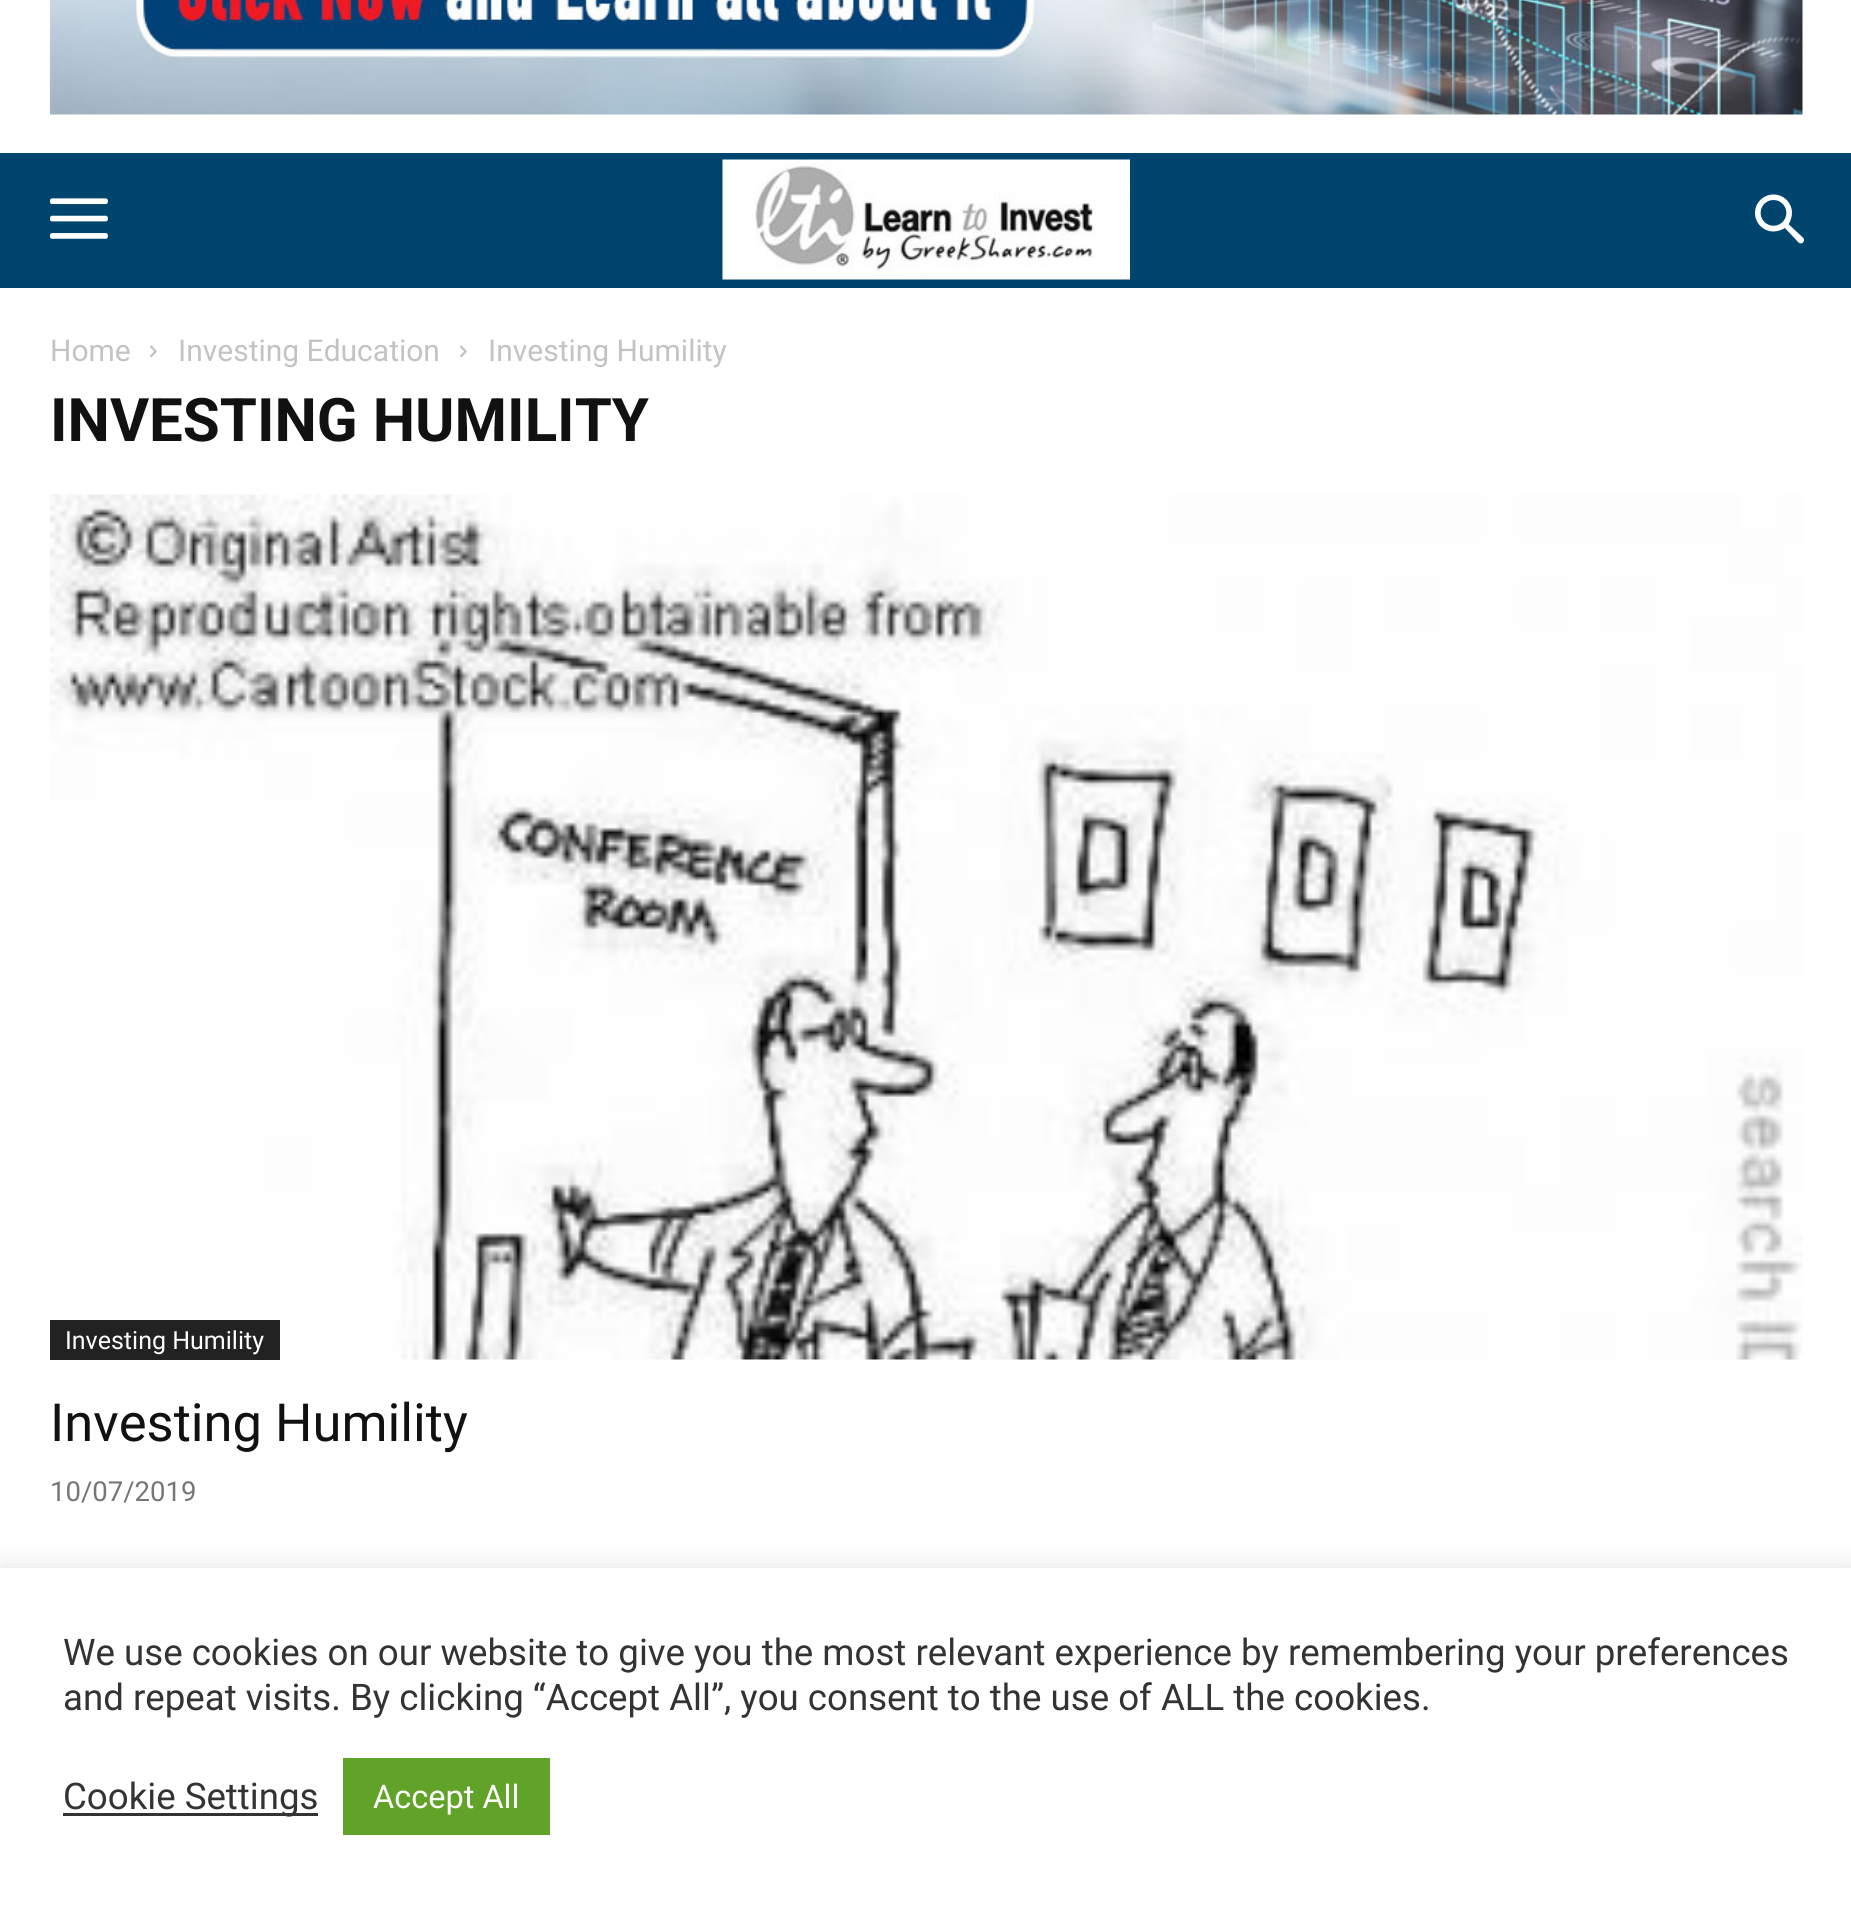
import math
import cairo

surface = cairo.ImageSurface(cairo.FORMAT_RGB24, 1851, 1909)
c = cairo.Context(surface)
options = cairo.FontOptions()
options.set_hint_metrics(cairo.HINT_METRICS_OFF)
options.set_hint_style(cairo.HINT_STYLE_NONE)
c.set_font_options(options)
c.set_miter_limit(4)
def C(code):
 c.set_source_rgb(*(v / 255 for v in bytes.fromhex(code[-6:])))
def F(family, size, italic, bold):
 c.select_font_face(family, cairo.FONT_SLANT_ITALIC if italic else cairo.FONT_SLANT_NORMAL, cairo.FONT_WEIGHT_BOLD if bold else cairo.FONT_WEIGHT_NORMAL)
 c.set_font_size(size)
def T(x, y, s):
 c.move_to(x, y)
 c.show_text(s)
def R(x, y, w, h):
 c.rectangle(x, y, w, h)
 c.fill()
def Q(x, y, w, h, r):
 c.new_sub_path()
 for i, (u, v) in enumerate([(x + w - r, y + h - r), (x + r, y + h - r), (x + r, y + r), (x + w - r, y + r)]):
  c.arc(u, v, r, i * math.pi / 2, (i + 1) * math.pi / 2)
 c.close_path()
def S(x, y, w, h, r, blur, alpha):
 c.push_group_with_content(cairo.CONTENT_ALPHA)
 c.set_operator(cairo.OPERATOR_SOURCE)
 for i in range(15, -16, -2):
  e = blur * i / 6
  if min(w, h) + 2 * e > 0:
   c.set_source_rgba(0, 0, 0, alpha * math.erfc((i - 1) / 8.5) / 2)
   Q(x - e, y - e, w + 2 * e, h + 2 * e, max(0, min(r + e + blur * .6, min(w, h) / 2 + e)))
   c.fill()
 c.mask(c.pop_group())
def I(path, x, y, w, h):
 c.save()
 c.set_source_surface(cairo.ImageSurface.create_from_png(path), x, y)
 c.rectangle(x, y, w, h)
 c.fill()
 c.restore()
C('ffffff')
c.paint()
I('1.png',50,0,1753,115)
C('00456e')
R(0,153,1851,135)
I('2.png',50,198,58,41)
I('3.png',722,159,408,121)
I('4.png',1755,194,49,50)
F('Roboto',30,0,0)
C('c3c3c3')
T(50,361,'Home')
I('5.png',150,345,7,13)
T(178,361,'Investing Education')
I('5.png',460,345,7,13)
T(488,361,'Investing Humility')
F('Roboto',60,0,1)
C('111111')
T(50,441,'INVESTING HUMILITY')
I('6.png',50,494,1753,866)
C('222222')
R(50,1320,230,40)
F('Roboto',25,0,0)
C('ffffff')
T(65,1349,'Investing Humility')
F('Roboto',52.5,0,0)
C('111111')
T(50,1441,'Investing Humility')
F('Roboto',27.5,0,0)
C('767676')
T(50,1501,'10/07/2019')
C('acabab')
S(0,1565,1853,343,0,12.5,.3)
C('ffffff')
R(0,1568,1851,341)
F('Roboto',36.65,0,0)
C('333333')
T(63,1665,'We use cookies on our website to give you the most relevant experience by remembering your preferences')
T(63,1710,'and repeat visits. By clicking “Accept All”, you consent to the use of ALL the cookies.')
R(63,1813,255,3)
T(63,1809,'Cookie Settings')
C('61a229')
R(343,1758,207,77)
F('Roboto',32.5,0,0)
C('ffffff')
T(373,1808,'Accept All')
surface.write_to_png('o.png')
